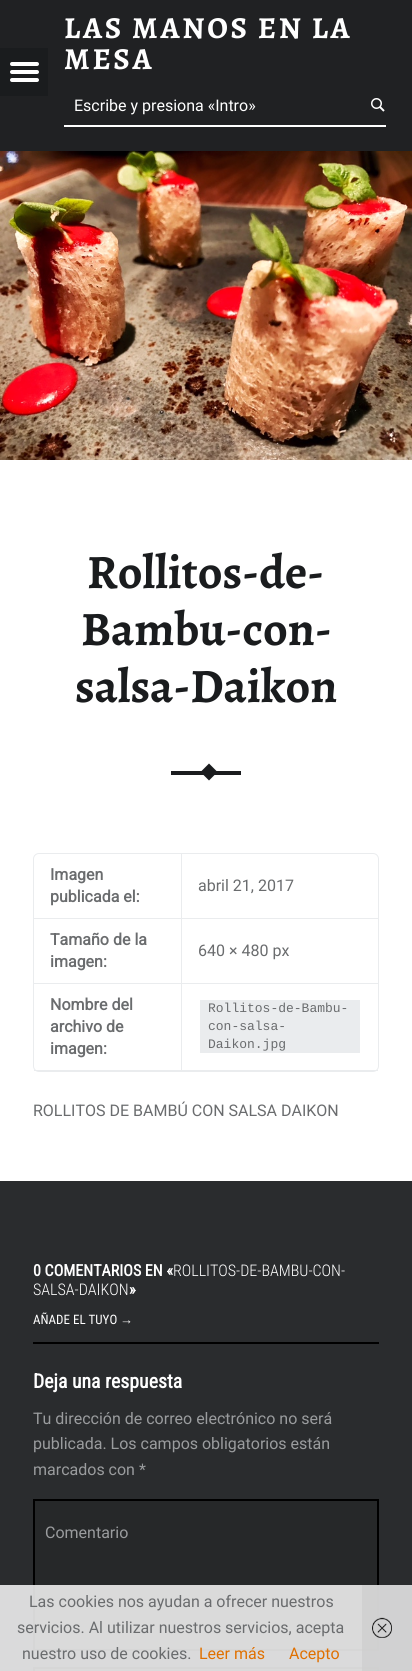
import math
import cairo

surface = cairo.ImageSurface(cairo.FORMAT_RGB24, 412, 1671)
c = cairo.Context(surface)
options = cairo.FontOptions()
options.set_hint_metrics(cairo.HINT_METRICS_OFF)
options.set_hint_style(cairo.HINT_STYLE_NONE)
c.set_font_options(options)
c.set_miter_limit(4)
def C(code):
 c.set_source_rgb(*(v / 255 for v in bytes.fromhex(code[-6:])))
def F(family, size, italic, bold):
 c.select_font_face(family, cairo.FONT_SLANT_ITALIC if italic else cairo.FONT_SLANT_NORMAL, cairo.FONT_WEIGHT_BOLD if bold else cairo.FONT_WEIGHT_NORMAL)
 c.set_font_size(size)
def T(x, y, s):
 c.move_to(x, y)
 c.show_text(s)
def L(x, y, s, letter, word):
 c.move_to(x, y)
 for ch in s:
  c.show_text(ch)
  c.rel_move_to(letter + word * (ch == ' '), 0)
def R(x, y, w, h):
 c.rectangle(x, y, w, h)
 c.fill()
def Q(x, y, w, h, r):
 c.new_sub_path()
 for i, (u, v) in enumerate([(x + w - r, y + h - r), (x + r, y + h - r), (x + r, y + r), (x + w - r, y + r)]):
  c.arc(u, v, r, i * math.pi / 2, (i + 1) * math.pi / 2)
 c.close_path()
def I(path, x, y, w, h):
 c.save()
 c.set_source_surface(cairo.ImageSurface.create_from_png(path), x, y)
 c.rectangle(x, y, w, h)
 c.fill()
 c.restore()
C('ffffff')
c.paint()
C('202123')
R(0,0,412,151)
C('1a1c1e')
R(0,48,48,48)
C('ffffff')
Q(10,62,29,4,2)
c.fill()
Q(10,70,29,4,2)
c.fill()
Q(10,78,29,4,2)
c.fill()
F('Alegreya',30.5,0,1)
L(64,38,'LAS MANOS EN LA',2.75,0)
L(64,69,'MESA',2.75,0)
R(64,125,322,2)
F('Roboto',16,0,0)
T(74,111,'Escribe y presiona «Intro»')
I('1.png',371,98,14,14)
I('2.png',0,151,412,309)
F('Alegreya',48,0,1)
C('1a1c1e')
T(87,588,'Rollitos-de-')
T(81,645,'Bambu-con-')
T(75,702,'salsa-Daikon')
R(171,771,70,4)
c.new_path()
c.move_to(209,763.5)
c.line_to(217.5,772)
c.line_to(209,780.5)
c.line_to(200.5,772)
c.close_path()
c.fill()
Q(33.5,853.5,345,218,5.5)
C('eaecee')
c.set_line_width(1)
c.stroke()
R(34,918,344,1)
F('Roboto',16,0,1)
C('6a6c6e')
T(50,880,'Imagen')
T(50,902,'publicada el:')
C('eaecee')
R(181,854,1,65)
F('Roboto',16,0,0)
C('6a6c6e')
T(198,891,'abril 21, 2017')
C('eaecee')
R(34,983,344,1)
F('Roboto',16,0,1)
C('6a6c6e')
T(50,945,'Tamaño de la')
T(50,967,'imagen:')
C('eaecee')
R(181,919,1,65)
F('Roboto',16,0,0)
C('6a6c6e')
T(198,956,'640 × 480 px')
C('eaecee')
R(34,1070,344,1)
F('Roboto',16,0,1)
C('6a6c6e')
T(50,1010,'Nombre del')
T(50,1032,'archivo de')
T(50,1054,'imagen:')
C('eaecee')
R(181,984,1,87)
R(200,1000,160,53)
F('Liberation Mono',13,0,0)
C('6a6c6e')
T(208,1012,'Rollitos-de-Bambu-')
T(208,1030,'con-salsa-')
T(208,1048,'Daikon.jpg')
F('Roboto',16,0,0)
T(33,1116,'ROLLITOS DE BAMBÚ CON SALSA DAIKON')
C('2a2c2e')
R(0,1181,412,490)
F('Roboto Condensed',16,0,1)
C('ffffff')
T(33,1276,'0 COMENTARIOS EN «')
F('Roboto Condensed Light',16,0,0)
T(173,1276,'ROLLITOS-DE-BAMBU-CON-')
T(33,1295,'SALSA-DAIKON')
F('Roboto Condensed',16,0,1)
T(129,1295,'»')
F('Roboto Condensed',13,0,0)
T(33,1324,'AÑADE EL TUYO')
F('Liberation Sans',13,0,0)
T(120,1324,'→')
C('000000')
R(33,1342,346,2)
F('Roboto Condensed',19.75,0,1)
C('ffffff')
T(33,1388,'Deja una respuesta')
F('Roboto',16,0,0)
C('9a9c9e')
T(33,1424,'Tu dirección de correo electrónico no será')
T(33,1449,'publicada. Los campos obligatorios están')
T(33,1475,'marcados con *')
C('262829')
c.rectangle(34,1500,344,150)
c.fill_preserve()
C('000000')
c.set_line_width(2)
c.stroke()
C('9a9c9e')
T(45,1538,'Comentario')
C('262829')
c.rectangle(34,1668,344,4)
c.fill_preserve()
C('000000')
c.stroke()
c.set_source_rgba(0.933,0.933,0.933,0.9)
R(0,1585,412,86)
C('6a6c6e')
T(29,1607,'Las cookies nos ayudan a ofrecer nuestros')
T(17,1633,'servicios. Al utilizar nuestros servicios, acepta')
T(22,1659,'nuestro uso de cookies.')
C('e07000')
T(199,1659,'Leer más')
T(289,1659,'Acepto')
c.set_source_rgba(0.8,0.8,0.8,0.6)
R(362,1585,50,86)
I('3.png',372,1617,20,21)
surface.write_to_png('o.png')
